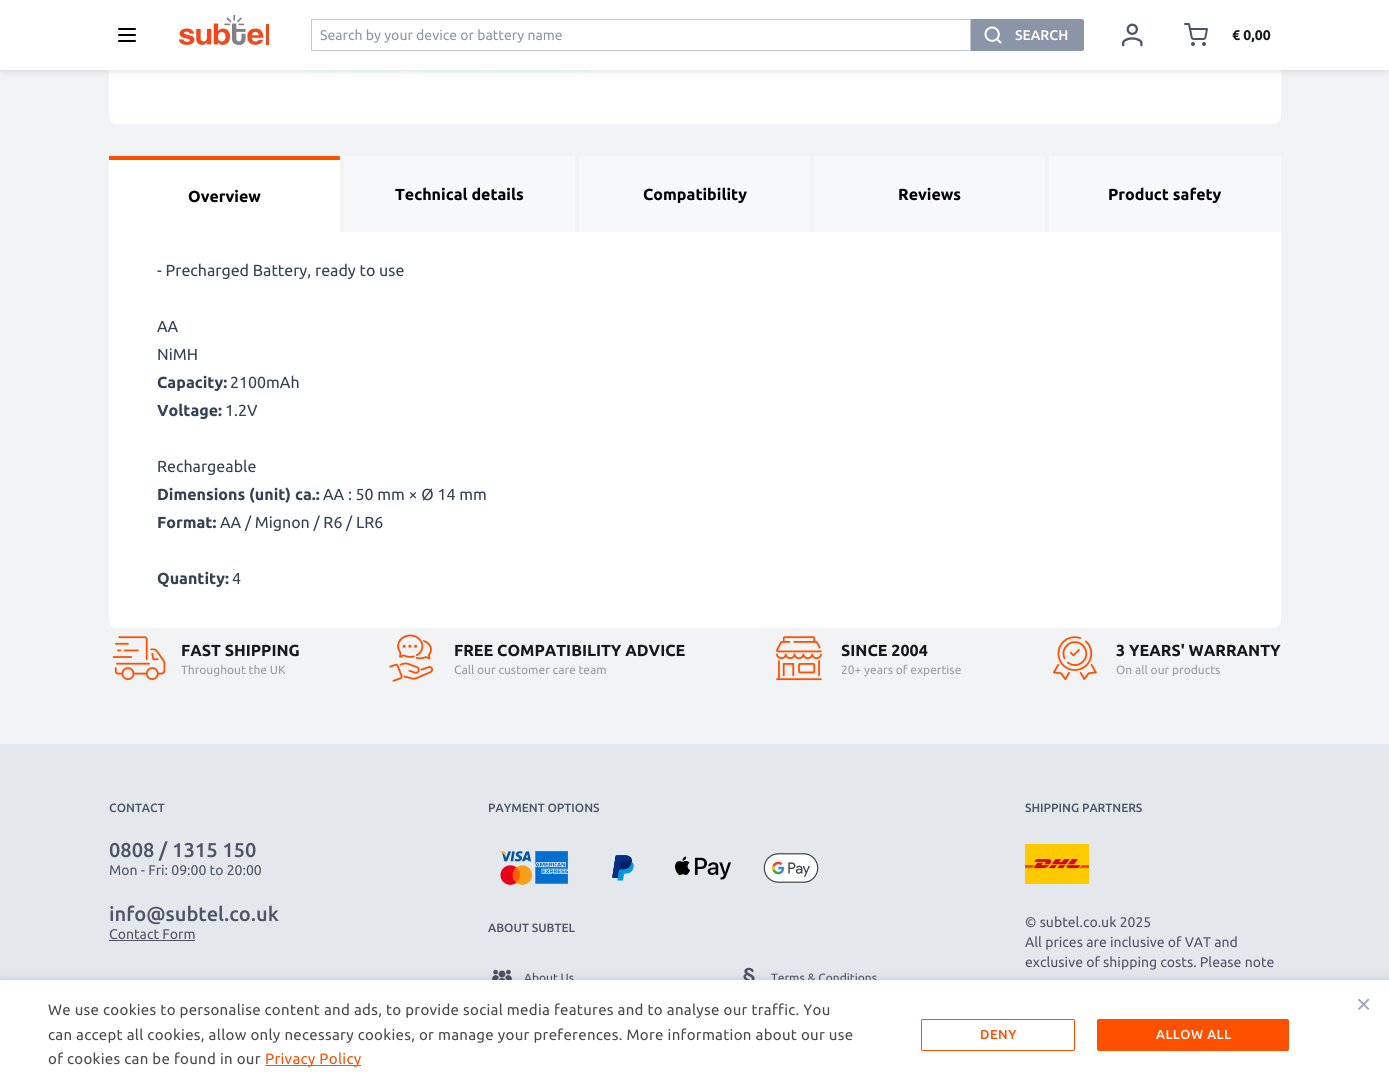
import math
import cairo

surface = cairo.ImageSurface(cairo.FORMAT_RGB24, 1389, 1090)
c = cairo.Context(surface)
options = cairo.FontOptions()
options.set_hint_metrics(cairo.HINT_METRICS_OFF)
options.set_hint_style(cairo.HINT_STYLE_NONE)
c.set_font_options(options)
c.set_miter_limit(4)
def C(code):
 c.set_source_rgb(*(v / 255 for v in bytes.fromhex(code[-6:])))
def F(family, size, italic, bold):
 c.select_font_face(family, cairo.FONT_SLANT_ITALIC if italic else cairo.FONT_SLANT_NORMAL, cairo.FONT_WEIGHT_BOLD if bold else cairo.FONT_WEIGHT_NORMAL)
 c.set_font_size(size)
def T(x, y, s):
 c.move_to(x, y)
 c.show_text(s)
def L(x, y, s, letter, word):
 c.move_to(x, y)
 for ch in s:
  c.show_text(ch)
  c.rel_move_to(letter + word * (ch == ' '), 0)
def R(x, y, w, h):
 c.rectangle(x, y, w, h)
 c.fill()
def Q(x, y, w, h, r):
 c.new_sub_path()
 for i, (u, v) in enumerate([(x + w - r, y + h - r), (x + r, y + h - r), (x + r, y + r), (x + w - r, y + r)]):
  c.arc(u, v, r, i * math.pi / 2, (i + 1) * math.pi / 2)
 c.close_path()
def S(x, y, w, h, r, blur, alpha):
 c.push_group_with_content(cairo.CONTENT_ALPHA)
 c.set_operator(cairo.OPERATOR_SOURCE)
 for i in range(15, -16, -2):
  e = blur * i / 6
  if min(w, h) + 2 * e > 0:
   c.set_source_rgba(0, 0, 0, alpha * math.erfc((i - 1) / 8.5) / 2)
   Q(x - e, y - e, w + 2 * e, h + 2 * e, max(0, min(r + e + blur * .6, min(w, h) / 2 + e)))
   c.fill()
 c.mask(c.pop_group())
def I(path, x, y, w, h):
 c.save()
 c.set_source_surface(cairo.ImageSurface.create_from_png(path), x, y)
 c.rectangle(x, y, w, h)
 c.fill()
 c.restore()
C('f1f3f5')
c.paint()
C('ffffff')
Q(109,-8,1172,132,8)
c.fill()
I('5.png',307,70,283,4)
C('101828')
S(2,6,1385,66,0,4,.1)
S(2,4,1385,66,0,2,.06)
C('ffffff')
R(0,0,1389,70)
c.new_path()
c.move_to(119,29)
c.line_to(135,29)
c.move_to(119,35)
c.line_to(135,35)
c.move_to(119,41)
c.line_to(135,41)
C('000000')
c.set_line_cap(cairo.LINE_CAP_ROUND)
c.set_line_join(cairo.LINE_JOIN_ROUND)
c.stroke()
I('1.png',179,15,90,30)
c.rectangle(311.5,19.5,659,31)
C('c1c8d2')
c.set_line_width(1)
c.set_line_cap(cairo.LINE_CAP_BUTT)
c.set_line_join(cairo.LINE_JOIN_MITER)
c.stroke()
F('Ubuntu',14,0,0)
C('8a96a8')
T(320,40,'Search by your device or battery name')
c.new_path()
c.move_to(971,19)
c.line_to(1082,19)
c.curve_to(1083,19,1084,20,1084,21)
c.line_to(1084,49)
c.curve_to(1084,50,1083,51,1082,51)
c.line_to(971,51)
c.close_path()
c.fill()
I('2.png',984,26,18,18)
F('Ubuntu Medium',14,0,0)
C('ffffff')
T(1015,40,'SEARCH')
I('3.png',1122,23,21,24)
I('4.png',1184,23,24,23)
F('Ubuntu',14,0,1)
C('16181d')
T(1232,40,'€ 0,00')
C('ffffff')
R(109,160,231,72)
C('ff5000')
R(109,156,231,4)
F('Ubuntu',16,0,1)
C('000000')
T(188,202,'Overview')
C('f7f8f9')
R(344,156,231,76)
C('000000')
T(395,200,'Technical details')
C('f7f8f9')
R(579,156,231,76)
C('000000')
T(643,200,'Compatibility')
C('f7f8f9')
R(814,156,231,76)
C('000000')
T(898,200,'Reviews')
C('f7f8f9')
R(1049,156,232,76)
C('000000')
T(1108,200,'Product safety')
C('ffffff')
c.new_path()
c.move_to(109,232)
c.line_to(1281,232)
c.line_to(1281,620)
c.curve_to(1281,624.5,1277.5,628,1273,628)
c.line_to(117,628)
c.curve_to(112.5,628,109,624.5,109,620)
c.close_path()
c.fill()
F('Ubuntu',16,0,0)
C('334155')
T(157,276,'- Precharged Battery, ready to use')
T(157,332,'AA')
T(157,360,'NiMH')
F('Ubuntu',16,0,1)
T(157,388,'Capacity:')
F('Ubuntu',16,0,0)
T(230,388,'2100mAh')
F('Ubuntu',16,0,1)
T(157,416,'Voltage:')
F('Ubuntu',16,0,0)
T(225,416,'1.2V')
T(157,472,'Rechargeable')
F('Ubuntu',16,0,1)
T(157,500,'Dimensions (unit) ca.:')
F('Ubuntu',16,0,0)
T(323,500,'AA : 50 mm × Ø 14 mm')
F('Ubuntu',16,0,1)
T(157,528,'Format:')
F('Ubuntu',16,0,0)
T(220,528,'AA / Mignon / R6 / LR6')
F('Ubuntu',16,0,1)
T(157,584,'Quantity:')
F('Ubuntu',16,0,0)
T(232,584,'4')
I('6.png',112,636,54,45)
F('Ubuntu',16,0,1)
C('16181d')
T(181,656,'FAST SHIPPING')
F('Ubuntu',12,0,0)
C('9a9a9a')
T(181,674,'Throughout the UK')
I('7.png',389,634,45,48)
F('Ubuntu',16,0,1)
C('16181d')
T(454,656,'FREE COMPATIBILITY ADVICE')
F('Ubuntu',12,0,0)
C('9a9a9a')
T(454,674,'Call our customer care team')
I('8.png',776,636,46,45)
F('Ubuntu',16,0,1)
C('16181d')
T(841,656,'SINCE 2004')
F('Ubuntu',12,0,0)
C('9a9a9a')
T(841,674,'20+ years of expertise')
I('9.png',1053,636,44,45)
F('Ubuntu',16,0,1)
C('16181d')
T(1116,656,'3 YEARS\' WARRANTY')
F('Ubuntu',12,0,0)
C('9a9a9a')
T(1116,674,'On all our products')
C('e4e7ec')
R(0,744,1389,236)
F('Ubuntu Medium',12,0,0)
C('4c5567')
T(109,812,'CONTACT')
F('Ubuntu Medium',20,0,0)
T(109,857,'0808 / 1315 150')
F('Ubuntu',14,0,0)
T(109,875,'Mon - Fri: 09:00 to 20:00')
F('Ubuntu Medium',20,0,0)
T(109,921,'info@subtel.co.uk')
F('Ubuntu',14,0,0)
T(109,939,'Contact Form')
R(109,940,86,1)
F('Ubuntu Medium',12,0,0)
T(488,812,'PAYMENT OPTIONS')
I('10.png',499,851,69,34)
I('11.png',612,855,22,26)
I('12.png',675,856,56,24)
I('13.png',763,853,56,30)
T(488,932,'ABOUT SUBTEL')
I('14.png',492,969,20,11)
F('Ubuntu',12,0,0)
T(524,982,'About Us')
I('15.png',743,967,12,13)
T(771,982,'Terms & Conditions')
F('Ubuntu Medium',12,0,0)
T(1025,812,'SHIPPING PARTNERS')
I('16.png',1025,844,64,40)
F('Ubuntu',14,0,0)
T(1025,927,'© subtel.co.uk 2025')
T(1025,947,'All prices are inclusive of VAT and')
T(1025,967,'exclusive of shipping costs. Please note')
C('000000')
S(0,978,1389,110,0,5,.1)
C('ffffff')
R(0,980,1389,110)
F('Ubuntu',15,0,0)
C('4a4a4a')
L(48,1015,'We use cookies to personalise content and ads, to provide social media features and to analyse our traffic. You',.3,0)
L(48,1040,'can accept all cookies, allow only necessary cookies, or manage your preferences. More information about our use',.3,0)
L(48,1064,'of cookies can be found in our',.3,0)
C('ff5000')
R(265,1065,96,1)
L(265,1064,'Privacy Policy',.3,0)
Q(921.5,1019.5,153,31,1.5)
c.stroke()
F('Ubuntu Medium',13,0,0)
L(980,1039,'DENY',.5,0)
Q(1097.5,1019.5,191,31,1.5)
c.fill_preserve()
c.stroke()
C('ffffff')
L(1156,1039,'ALLOW ALL',.5,0)
F('Liberation Sans',26,0,0)
C('9ca6b5')
T(1356,1013,'×')
surface.write_to_png('o.png')
